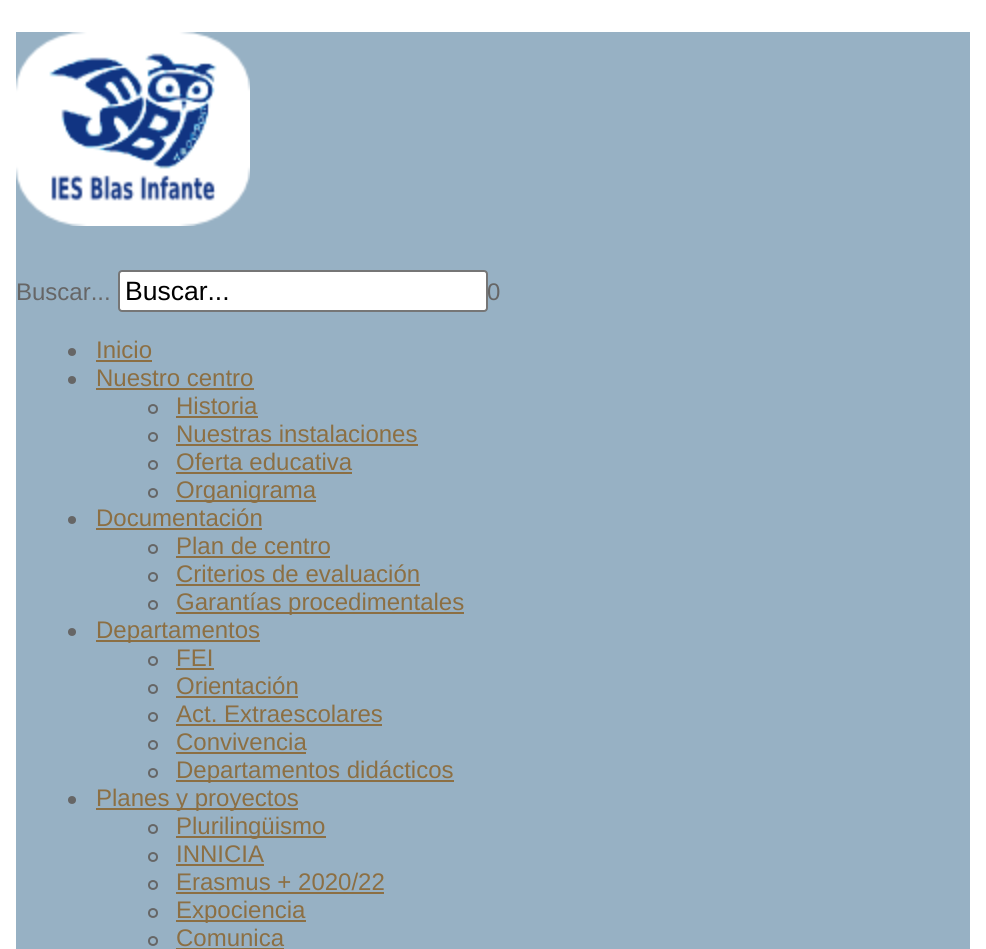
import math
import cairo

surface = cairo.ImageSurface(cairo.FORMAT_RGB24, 986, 949)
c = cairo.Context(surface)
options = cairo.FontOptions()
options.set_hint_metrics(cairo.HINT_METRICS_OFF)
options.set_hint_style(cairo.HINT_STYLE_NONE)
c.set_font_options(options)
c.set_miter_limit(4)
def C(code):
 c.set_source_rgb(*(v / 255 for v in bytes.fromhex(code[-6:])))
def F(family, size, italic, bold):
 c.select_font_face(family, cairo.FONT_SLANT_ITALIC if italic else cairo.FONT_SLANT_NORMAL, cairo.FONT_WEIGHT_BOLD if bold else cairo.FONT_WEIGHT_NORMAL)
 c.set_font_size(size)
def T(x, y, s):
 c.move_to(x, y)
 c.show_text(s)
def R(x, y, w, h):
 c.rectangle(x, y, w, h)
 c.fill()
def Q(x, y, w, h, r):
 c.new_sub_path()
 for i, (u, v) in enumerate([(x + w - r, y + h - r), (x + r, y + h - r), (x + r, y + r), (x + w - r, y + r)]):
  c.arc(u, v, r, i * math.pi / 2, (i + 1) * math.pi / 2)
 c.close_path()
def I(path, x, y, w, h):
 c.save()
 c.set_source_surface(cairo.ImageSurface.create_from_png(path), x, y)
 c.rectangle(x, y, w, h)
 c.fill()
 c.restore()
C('ffffff')
c.paint()
C('97b1c4')
R(16,32,954,917)
I('1.png',16,32,234,194)
F('Liberation Sans',24,0,0)
C('666666')
T(16,300,'Buscar...')
C('ffffff')
Q(119,271,368,40,3)
c.fill_preserve()
C('767676')
c.stroke()
F('Liberation Sans',26.5,0,0)
C('000000')
T(125,300,'Buscar...')
F('Liberation Sans',24,0,0)
C('666666')
T(487,300,'0')
c.new_path()
c.arc(72,352,4,0,2 * math.pi)
c.fill()
C('8c6f43')
T(96,358,'Inicio')
R(96,360,56,2)
C('666666')
c.new_path()
c.arc(72,380,4,0,2 * math.pi)
c.fill()
C('8c6f43')
T(96,386,'Nuestro centro')
R(96,388,158,2)
c.new_path()
c.arc(153,409,4,0,2 * math.pi)
C('666666')
c.stroke()
C('8c6f43')
T(176,414,'Historia')
R(176,416,82,2)
c.new_path()
c.arc(153,437,4,0,2 * math.pi)
C('666666')
c.stroke()
C('8c6f43')
T(176,442,'Nuestras instalaciones')
R(176,444,242,2)
c.new_path()
c.arc(153,465,4,0,2 * math.pi)
C('666666')
c.stroke()
C('8c6f43')
T(176,470,'Oferta educativa')
R(176,472,176,2)
c.new_path()
c.arc(153,493,4,0,2 * math.pi)
C('666666')
c.stroke()
C('8c6f43')
R(176,500,140,2)
T(176,498,'Organigrama')
C('666666')
c.new_path()
c.arc(72,520,4,0,2 * math.pi)
c.fill()
C('8c6f43')
T(96,526,'Documentación')
R(96,528,166,2)
c.new_path()
c.arc(153,549,4,0,2 * math.pi)
C('666666')
c.stroke()
C('8c6f43')
T(176,554,'Plan de centro')
R(176,556,154,2)
c.new_path()
c.arc(153,577,4,0,2 * math.pi)
C('666666')
c.stroke()
C('8c6f43')
T(176,582,'Criterios de evaluación')
R(176,584,244,2)
c.new_path()
c.arc(153,605,4,0,2 * math.pi)
C('666666')
c.stroke()
C('8c6f43')
R(176,612,288,2)
T(176,610,'Garantías procedimentales')
C('666666')
c.new_path()
c.arc(72,632,4,0,2 * math.pi)
c.fill()
C('8c6f43')
R(96,640,164,2)
T(96,638,'Departamentos')
c.new_path()
c.arc(153,661,4,0,2 * math.pi)
C('666666')
c.stroke()
C('8c6f43')
T(176,666,'FEI')
R(176,668,38,2)
c.new_path()
c.arc(153,689,4,0,2 * math.pi)
C('666666')
c.stroke()
C('8c6f43')
T(176,694,'Orientación')
R(176,696,122,2)
c.new_path()
c.arc(153,717,4,0,2 * math.pi)
C('666666')
c.stroke()
C('8c6f43')
T(176,722,'Act. Extraescolares')
R(176,724,206,2)
c.new_path()
c.arc(153,745,4,0,2 * math.pi)
C('666666')
c.stroke()
C('8c6f43')
T(176,750,'Convivencia')
R(176,752,130,2)
c.new_path()
c.arc(153,773,4,0,2 * math.pi)
C('666666')
c.stroke()
C('8c6f43')
R(176,780,278,2)
T(176,778,'Departamentos didácticos')
C('666666')
c.new_path()
c.arc(72,800,4,0,2 * math.pi)
c.fill()
C('8c6f43')
R(96,808,202,2)
T(96,806,'Planes y proyectos')
c.new_path()
c.arc(153,829,4,0,2 * math.pi)
C('666666')
c.stroke()
C('8c6f43')
R(176,836,150,2)
T(176,834,'Plurilingüismo')
c.new_path()
c.arc(153,857,4,0,2 * math.pi)
C('666666')
c.stroke()
C('8c6f43')
T(176,862,'INNICIA')
R(176,864,88,2)
c.new_path()
c.arc(153,885,4,0,2 * math.pi)
C('666666')
c.stroke()
C('8c6f43')
T(176,890,'Erasmus + 2020/22')
R(176,892,208,2)
c.new_path()
c.arc(153,913,4,0,2 * math.pi)
C('666666')
c.stroke()
C('8c6f43')
R(176,920,130,2)
T(176,918,'Expociencia')
c.new_path()
c.arc(153,941,4,0,2 * math.pi)
C('666666')
c.stroke()
C('8c6f43')
T(176,946,'Comunica')
R(176,948,108,1)
surface.write_to_png('o.png')
